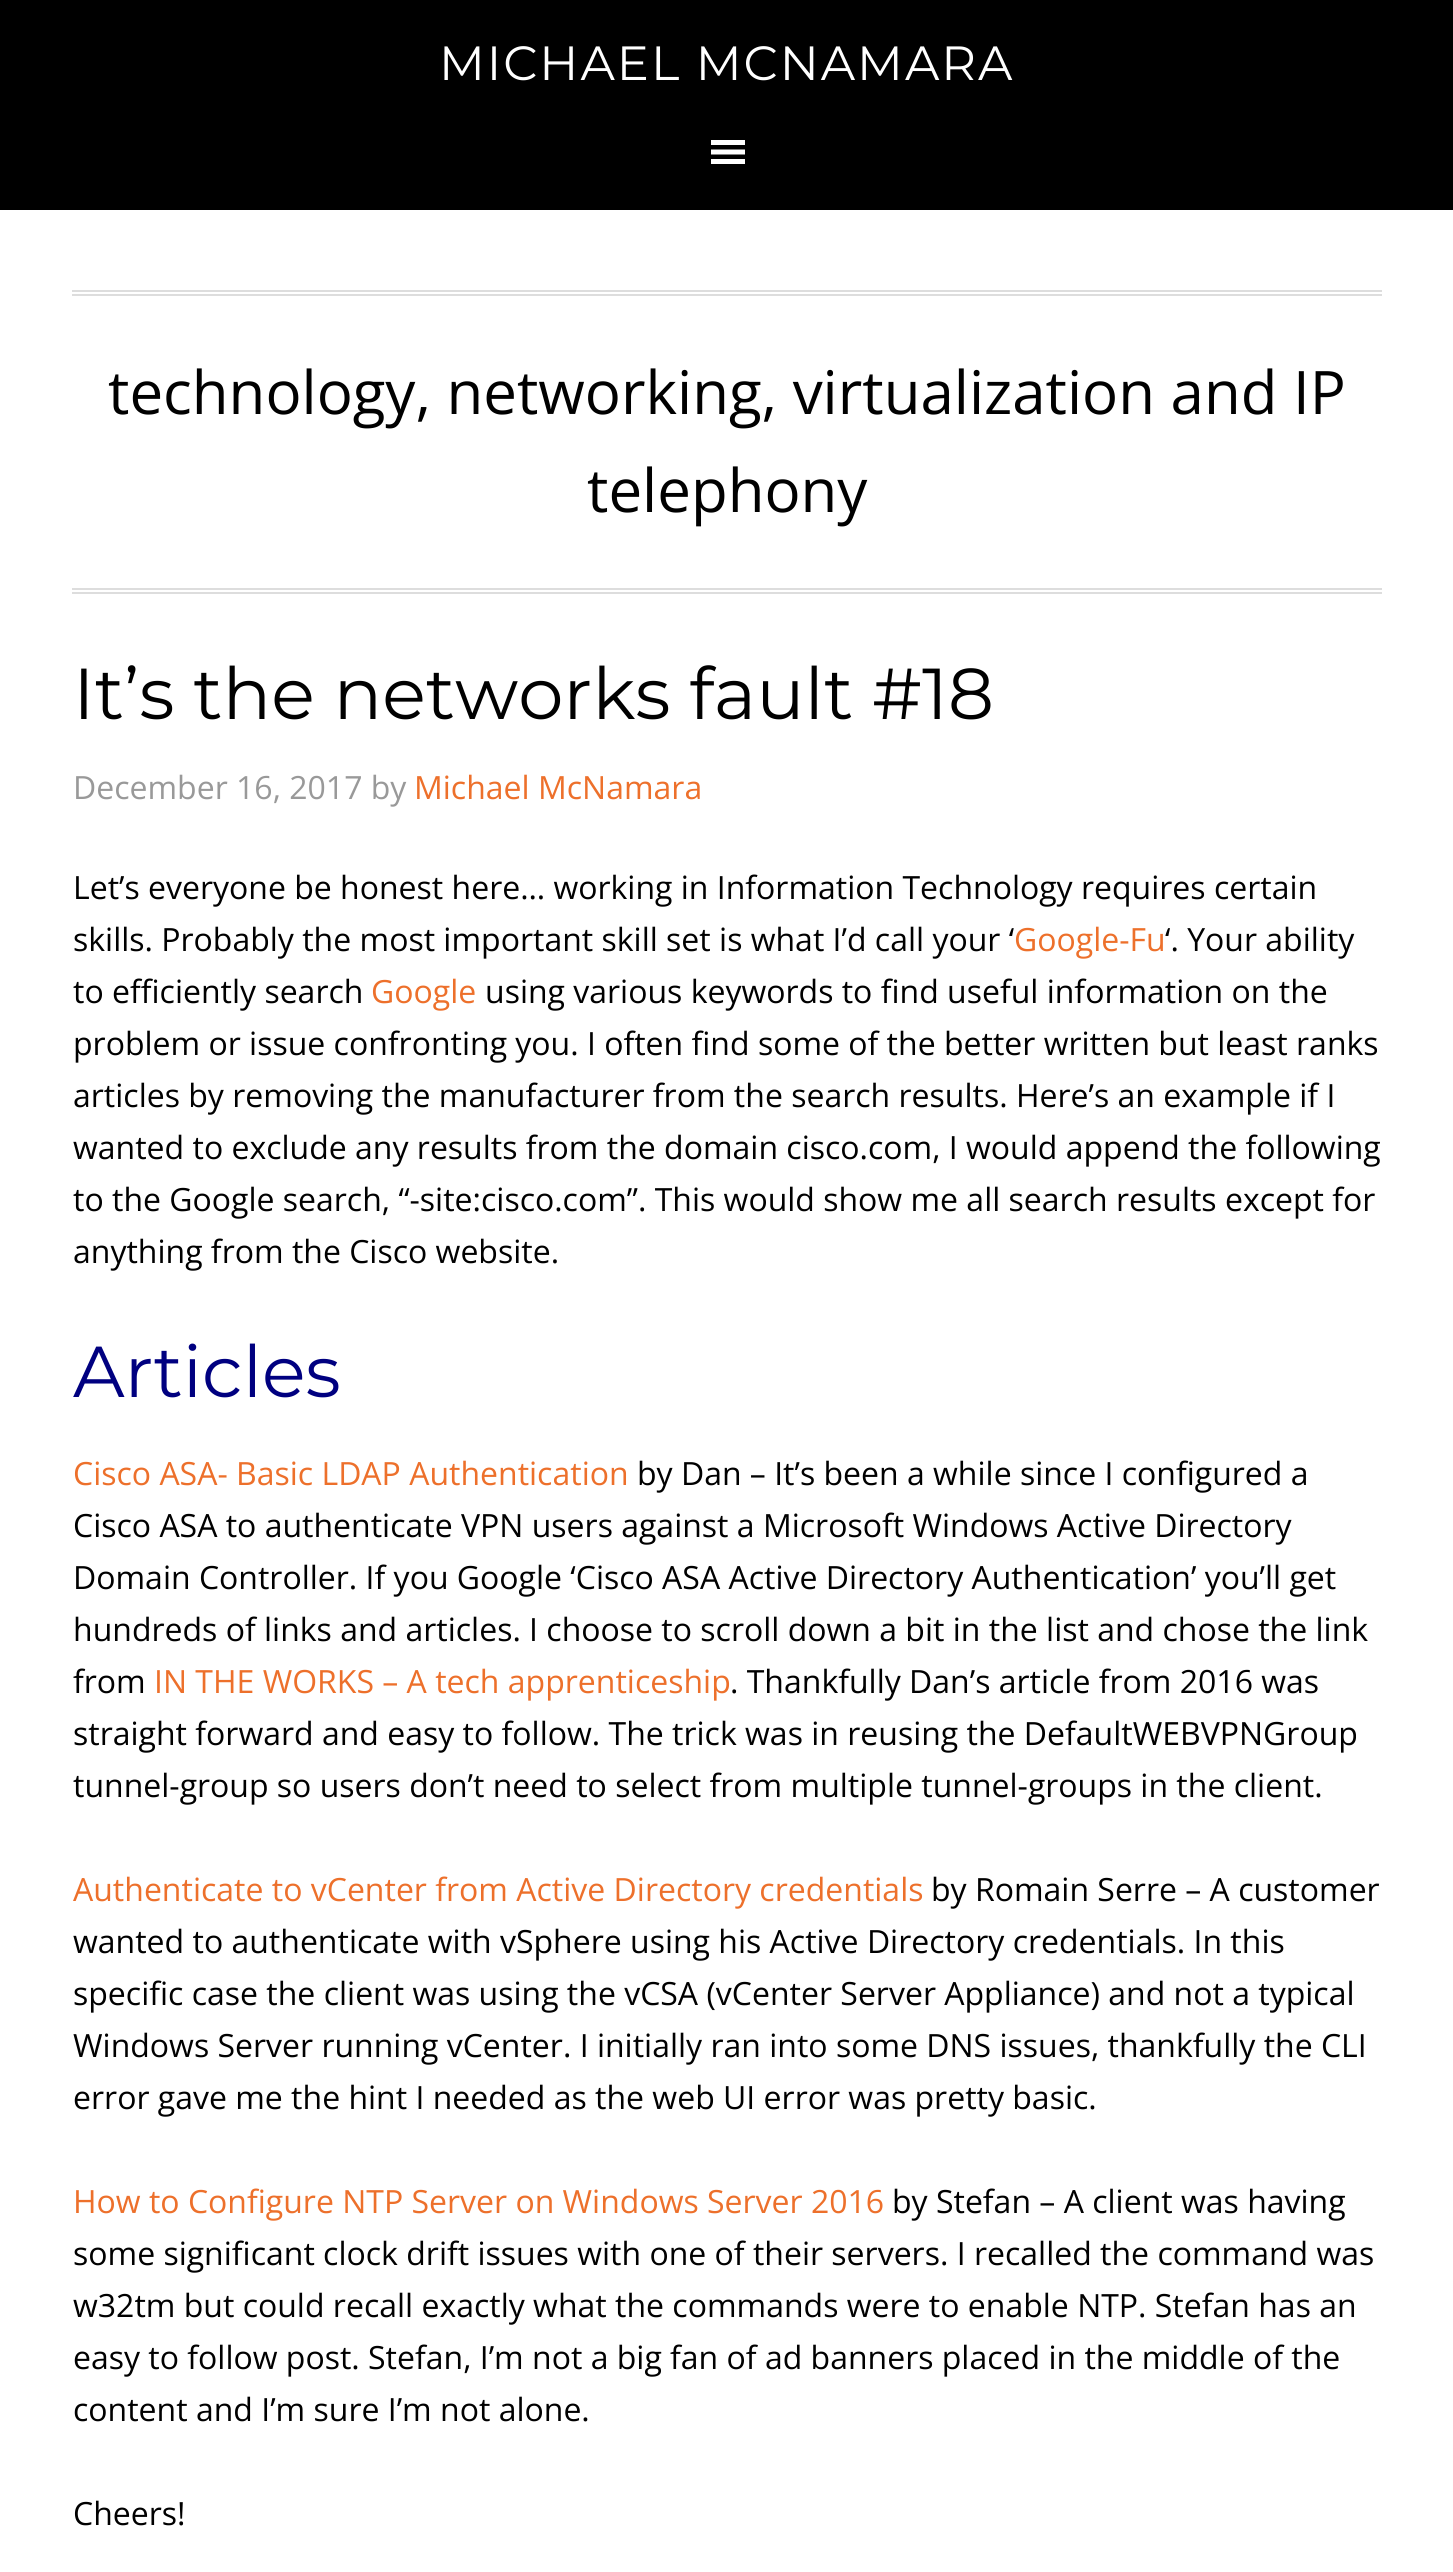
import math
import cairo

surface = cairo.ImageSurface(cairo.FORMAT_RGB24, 1453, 2572)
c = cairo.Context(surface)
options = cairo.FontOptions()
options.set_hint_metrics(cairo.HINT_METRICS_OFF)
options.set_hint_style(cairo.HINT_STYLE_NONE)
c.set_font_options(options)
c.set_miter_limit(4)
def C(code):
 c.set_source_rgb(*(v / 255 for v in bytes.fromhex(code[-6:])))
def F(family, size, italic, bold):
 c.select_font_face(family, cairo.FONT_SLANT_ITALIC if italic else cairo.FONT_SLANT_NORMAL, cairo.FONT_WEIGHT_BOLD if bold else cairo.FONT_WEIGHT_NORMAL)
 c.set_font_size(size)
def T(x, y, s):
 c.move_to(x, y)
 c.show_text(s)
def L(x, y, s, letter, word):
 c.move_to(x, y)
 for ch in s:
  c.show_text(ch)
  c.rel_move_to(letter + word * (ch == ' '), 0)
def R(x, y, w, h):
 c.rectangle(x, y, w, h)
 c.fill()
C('ffffff')
c.paint()
C('000000')
R(0,0,1453,210)
F('Montserrat',48,0,0)
C('ffffff')
L(439,80,'MICHAEL MCNAMARA',2,0)
c.new_path()
c.move_to(711,164)
c.line_to(745,164)
c.line_to(745,159)
c.line_to(711,159)
c.close_path()
c.move_to(711,140)
c.line_to(711,145)
c.line_to(745,145)
c.line_to(745,140)
c.close_path()
c.move_to(711,154.5)
c.line_to(745,154.5)
c.line_to(745,149.5)
c.line_to(711,149.5)
c.close_path()
c.fill()
C('dddddd')
R(72,290,1310,2)
R(72,294,1310,2)
R(72,588,1310,2)
R(72,592,1310,2)
F('Open Sans',60,0,0)
C('000000')
T(108,414,'technology, networking, virtualization and IP')
T(587,512,'telephony')
F('Montserrat',72,0,0)
T(73,719,'It’s the networks fault #18')
F('Open Sans',32,0,0)
C('999999')
T(73,799,'December 16, 2017 by')
C('ed702b')
T(414,799,'Michael McNamara')
C('000000')
T(73,899,'Let’s everyone be honest here… working in Information Technology requires certain')
T(73,951,'skills. Probably the most important skill set is what I’d call your ‘')
C('ed702b')
T(1014,951,'Google-Fu')
C('000000')
T(1165,951,'‘. Your ability')
T(73,1003,'to efficiently search')
C('ed702b')
T(371,1003,'Google')
C('000000')
T(485,1003,'using various keywords to find useful information on the')
T(73,1055,'problem or issue confronting you. I often find some of the better written but least ranks')
T(73,1107,'articles by removing the manufacturer from the search results. Here’s an example if I')
T(73,1159,'wanted to exclude any results from the domain cisco.com, I would append the following')
T(73,1211,'to the Google search, “-site:cisco.com”. This would show me all search results except for')
T(73,1263,'anything from the Cisco website.')
F('Montserrat',72,0,0)
C('000080')
T(73,1397,'Articles')
F('Open Sans',32,0,0)
C('ed702b')
T(73,1485,'Cisco ASA- Basic LDAP Authentication')
C('000000')
T(637,1485,'by Dan – It’s been a while since I configured a')
T(73,1537,'Cisco ASA to authenticate VPN users against a Microsoft Windows Active Directory')
T(73,1589,'Domain Controller. If you Google ‘Cisco ASA Active Directory Authentication’ you’ll get')
T(73,1641,'hundreds of links and articles. I choose to scroll down a bit in the list and chose the link')
T(73,1693,'from')
C('ed702b')
T(154,1693,'IN THE WORKS – A tech apprenticeship')
C('000000')
T(730,1693,'. Thankfully Dan’s article from 2016 was')
T(73,1745,'straight forward and easy to follow. The trick was in reusing the DefaultWEBVPNGroup')
T(73,1797,'tunnel-group so users don’t need to select from multiple tunnel-groups in the client.')
C('ed702b')
T(73,1901,'Authenticate to vCenter from Active Directory credentials')
C('000000')
T(931,1901,'by Romain Serre – A customer')
T(73,1953,'wanted to authenticate with vSphere using his Active Directory credentials. In this')
T(73,2005,'specific case the client was using the vCSA (vCenter Server Appliance) and not a typical')
T(73,2057,'Windows Server running vCenter. I initially ran into some DNS issues, thankfully the CLI')
T(73,2109,'error gave me the hint I needed as the web UI error was pretty basic.')
C('ed702b')
T(73,2213,'How to Configure NTP Server on Windows Server 2016')
C('000000')
T(892,2213,'by Stefan – A client was having')
T(73,2265,'some significant clock drift issues with one of their servers. I recalled the command was')
T(73,2317,'w32tm but could recall exactly what the commands were to enable NTP. Stefan has an')
T(73,2369,'easy to follow post. Stefan, I’m not a big fan of ad banners placed in the middle of the')
T(73,2421,'content and I’m sure I’m not alone.')
T(73,2525,'Cheers!')
surface.write_to_png('o.png')
